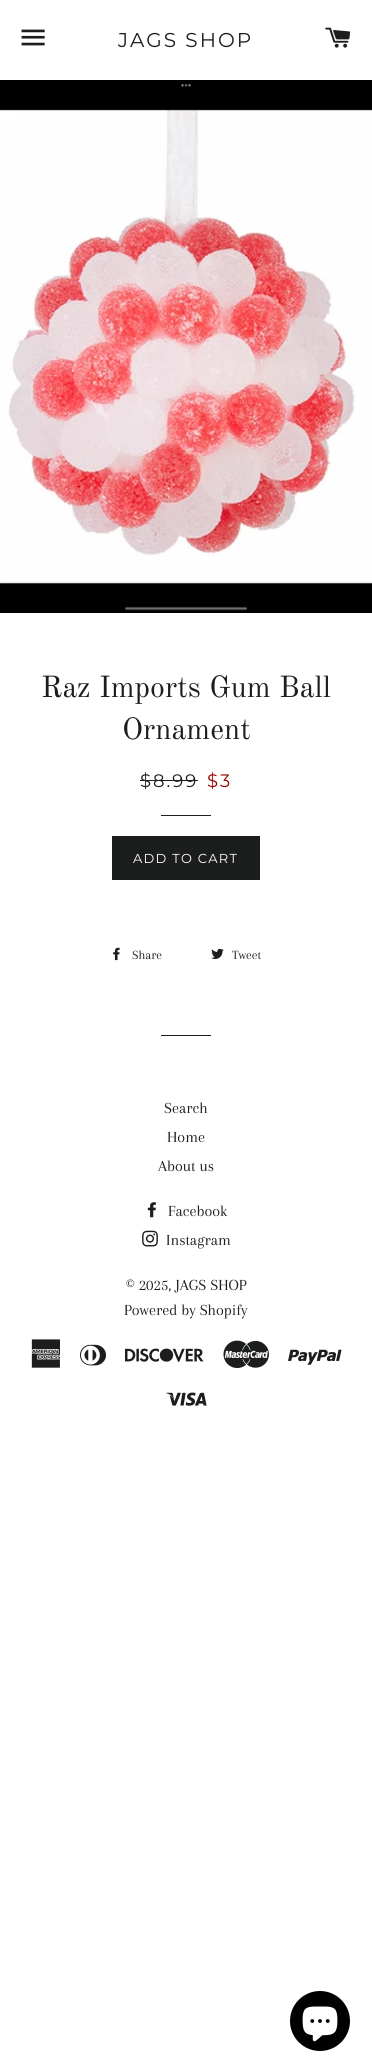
import math
import cairo

surface = cairo.ImageSurface(cairo.FORMAT_RGB24, 372, 2072)
c = cairo.Context(surface)
options = cairo.FontOptions()
options.set_hint_metrics(cairo.HINT_METRICS_OFF)
options.set_hint_style(cairo.HINT_STYLE_NONE)
c.set_font_options(options)
c.set_miter_limit(4)
def C(code):
 c.set_source_rgb(*(v / 255 for v in bytes.fromhex(code[-6:])))
def F(family, size, italic, bold):
 c.select_font_face(family, cairo.FONT_SLANT_ITALIC if italic else cairo.FONT_SLANT_NORMAL, cairo.FONT_WEIGHT_BOLD if bold else cairo.FONT_WEIGHT_NORMAL)
 c.set_font_size(size)
def T(x, y, s):
 c.move_to(x, y)
 c.show_text(s)
def L(x, y, s, letter, word):
 c.move_to(x, y)
 for ch in s:
  c.show_text(ch)
  c.rel_move_to(letter + word * (ch == ' '), 0)
def R(x, y, w, h):
 c.rectangle(x, y, w, h)
 c.fill()
def I(path, x, y, w, h):
 c.save()
 c.set_source_surface(cairo.ImageSurface.create_from_png(path), x, y)
 c.rectangle(x, y, w, h)
 c.fill()
 c.restore()
C('ffffff')
c.paint()
I('1.png',21,29,24,17)
F('Montserrat Thin',20,0,0)
C('1c1d1d')
L(118,47,'JAGS SHOP',2,0)
I('2.png',325,27,26,21)
I('3.png',0,80,372,533)
F('Old Standard TT',30,0,0)
T(41,697,'Raz Imports Gum Ball')
T(122,739,'Ornament')
F('Montserrat Thin',18,0,0)
L(140,787,'$8.99',2,0)
R(140,780,58,1)
C('990000')
L(207,787,'$3',2,0)
C('1c1d1d')
R(161,815,50,1)
R(112,836,148,44)
F('Montserrat Thin',13,0,0)
C('ffffff')
L(133,863,'ADD TO CART',1.25,0)
I('4.png',113,947,7,14)
F('Arapey',13,0,0)
C('1c1d1d')
T(132,959,'Share')
I('5.png',211,948,13,11)
T(232,959,'Tweet')
R(161,1035,50,1)
F('Arapey',16,0,0)
T(164,1113,'Search')
T(167,1142,'Home')
T(158,1171,'About us')
I('6.png',147,1202,9,16)
T(168,1216,'Facebook')
I('7.png',142,1230,16,17)
T(166,1245,'Instagram')
T(126,1290,'© 2025, JAGS SHOP')
T(124,1315,'Powered by Shopify')
I('8.png',31,1339,30,29)
I('9.png',80,1344,26,22)
I('10.png',125,1348,79,14)
I('11.png',223,1340,46,29)
I('12.png',288,1349,54,16)
I('13.png',166,1392,41,14)
C('000000')
c.arc(320,2021,30,0,2 * math.pi)
c.fill()
I('14.png',302,2006,36,36)
surface.write_to_png('o.png')
